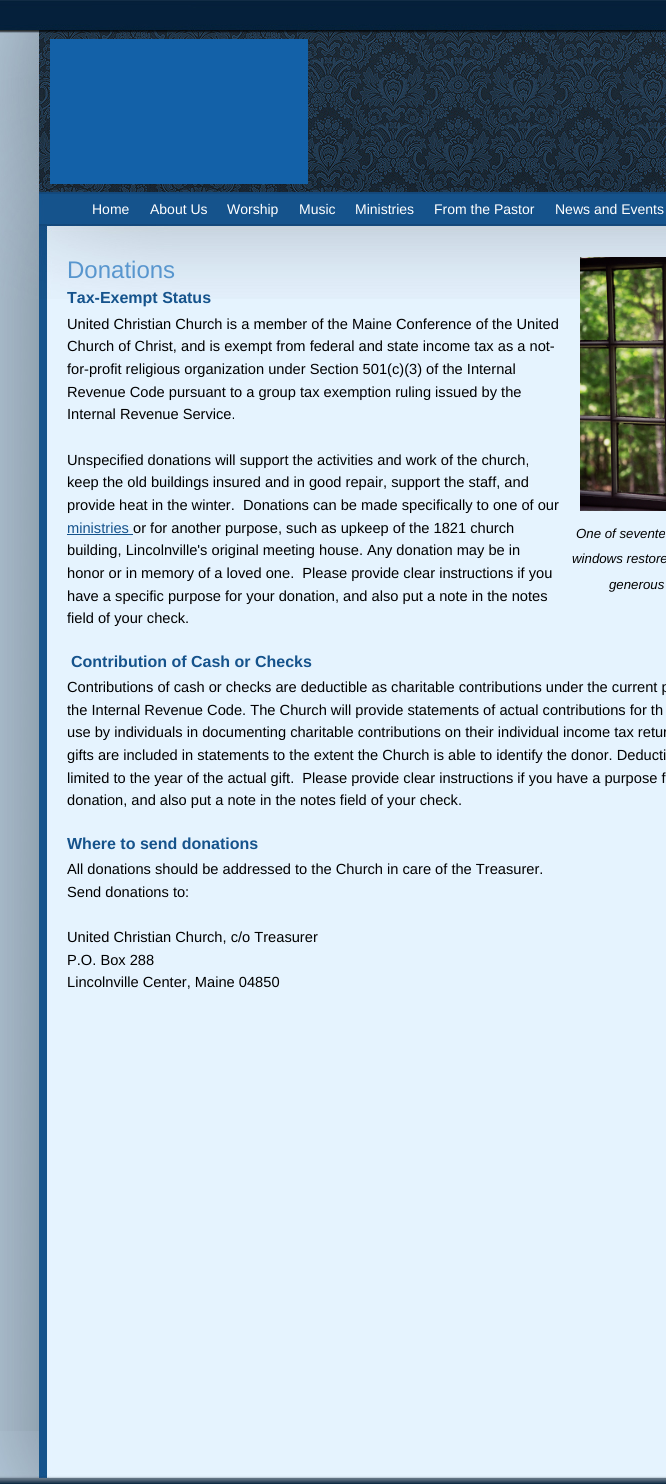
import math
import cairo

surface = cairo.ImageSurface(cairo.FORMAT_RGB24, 666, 1484)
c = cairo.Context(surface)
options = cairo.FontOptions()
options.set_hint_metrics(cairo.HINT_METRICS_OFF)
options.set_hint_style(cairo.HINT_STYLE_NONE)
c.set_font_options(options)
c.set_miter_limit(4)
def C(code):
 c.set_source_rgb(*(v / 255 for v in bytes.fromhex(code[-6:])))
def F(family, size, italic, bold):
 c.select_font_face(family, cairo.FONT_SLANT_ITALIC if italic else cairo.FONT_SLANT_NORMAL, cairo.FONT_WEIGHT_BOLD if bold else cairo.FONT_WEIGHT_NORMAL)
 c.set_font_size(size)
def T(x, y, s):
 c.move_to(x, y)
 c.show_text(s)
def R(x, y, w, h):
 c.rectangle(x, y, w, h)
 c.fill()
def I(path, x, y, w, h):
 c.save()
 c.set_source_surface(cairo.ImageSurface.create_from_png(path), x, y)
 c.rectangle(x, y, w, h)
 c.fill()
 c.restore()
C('ffffff')
c.paint()
I('1.png',0,299,666,1132)
I('2.png',0,0,666,299)
C('1361a8')
R(50,39,258,145)
F('Liberation Sans',14,0,0)
C('ffffff')
T(92,214,'Home')
T(150,214,'About Us')
T(227,214,'Worship')
T(299,214,'Music')
T(355,214,'Ministries')
T(434,214,'From the Pastor')
T(555,214,'News and Events')
F('Liberation Sans',24,0,0)
C('5896ce')
T(67,278,'Donations')
I('3.png',580,257,86,254)
F('Liberation Sans',13.25,1,0)
C('000000')
T(576,538,'One of sevente')
T(572,563,'windows restore')
T(609,589,'generous')
F('Liberation Sans',16,0,1)
C('15538c')
T(67,303,'Tax-Exempt Status')
F('Liberation Sans',14.65,0,0)
C('000000')
T(67,329,'United Christian Church is a member of the Maine Conference of the United')
T(67,351,'Church of Christ, and is exempt from federal and state income tax as a not-')
T(67,374,'for-profit religious organization under Section 501(c)(3) of the Internal')
T(67,397,'Revenue Code pursuant to a group tax exemption ruling issued by the')
T(67,419,'Internal Revenue Service.')
T(67,465,'Unspecified donations will support the activities and work of the church,')
T(67,487,'keep the old buildings insured and in good repair, support the staff, and')
T(67,510,'provide heat in the winter.  Donations can be made specifically to one of our')
C('15538c')
T(67,533,'ministries')
R(67,534,66,1)
C('000000')
T(133,533,'or for another purpose, such as upkeep of the 1821 church')
T(67,555,'building, Lincolnville\'s original meeting house. Any donation may be in')
T(67,578,'honor or in memory of a loved one.  Please provide clear instructions if you')
T(67,601,'have a specific purpose for your donation, and also put a note in the notes')
T(67,623,'field of your check.')
F('Liberation Sans',16,0,1)
C('15538c')
T(71,667,'Contribution of Cash or Checks')
F('Liberation Sans',14.65,0,0)
C('000000')
T(67,692,'Contributions of cash or checks are deductible as charitable contributions under the current p')
T(67,715,'the Internal Revenue Code. The Church will provide statements of actual contributions for th')
T(67,737,'use by individuals in documenting charitable contributions on their individual income tax retur')
T(67,760,'gifts are included in statements to the extent the Church is able to identify the donor. Deducti')
T(67,783,'limited to the year of the actual gift.  Please provide clear instructions if you have a purpose f')
T(67,805,'donation, and also put a note in the notes field of your check.')
F('Liberation Sans',16,0,1)
C('15538c')
T(67,849,'Where to send donations')
F('Liberation Sans',14.65,0,0)
C('000000')
T(67,874,'All donations should be addressed to the Church in care of the Treasurer.')
T(67,897,'Send donations to:')
T(67,942,'United Christian Church, c/o Treasurer')
T(67,965,'P.O. Box 288')
T(67,987,'Lincolnville Center, Maine 04850')
I('4.png',0,1431,666,47)
I('5.png',0,1478,666,6)
surface.write_to_png('o.png')
